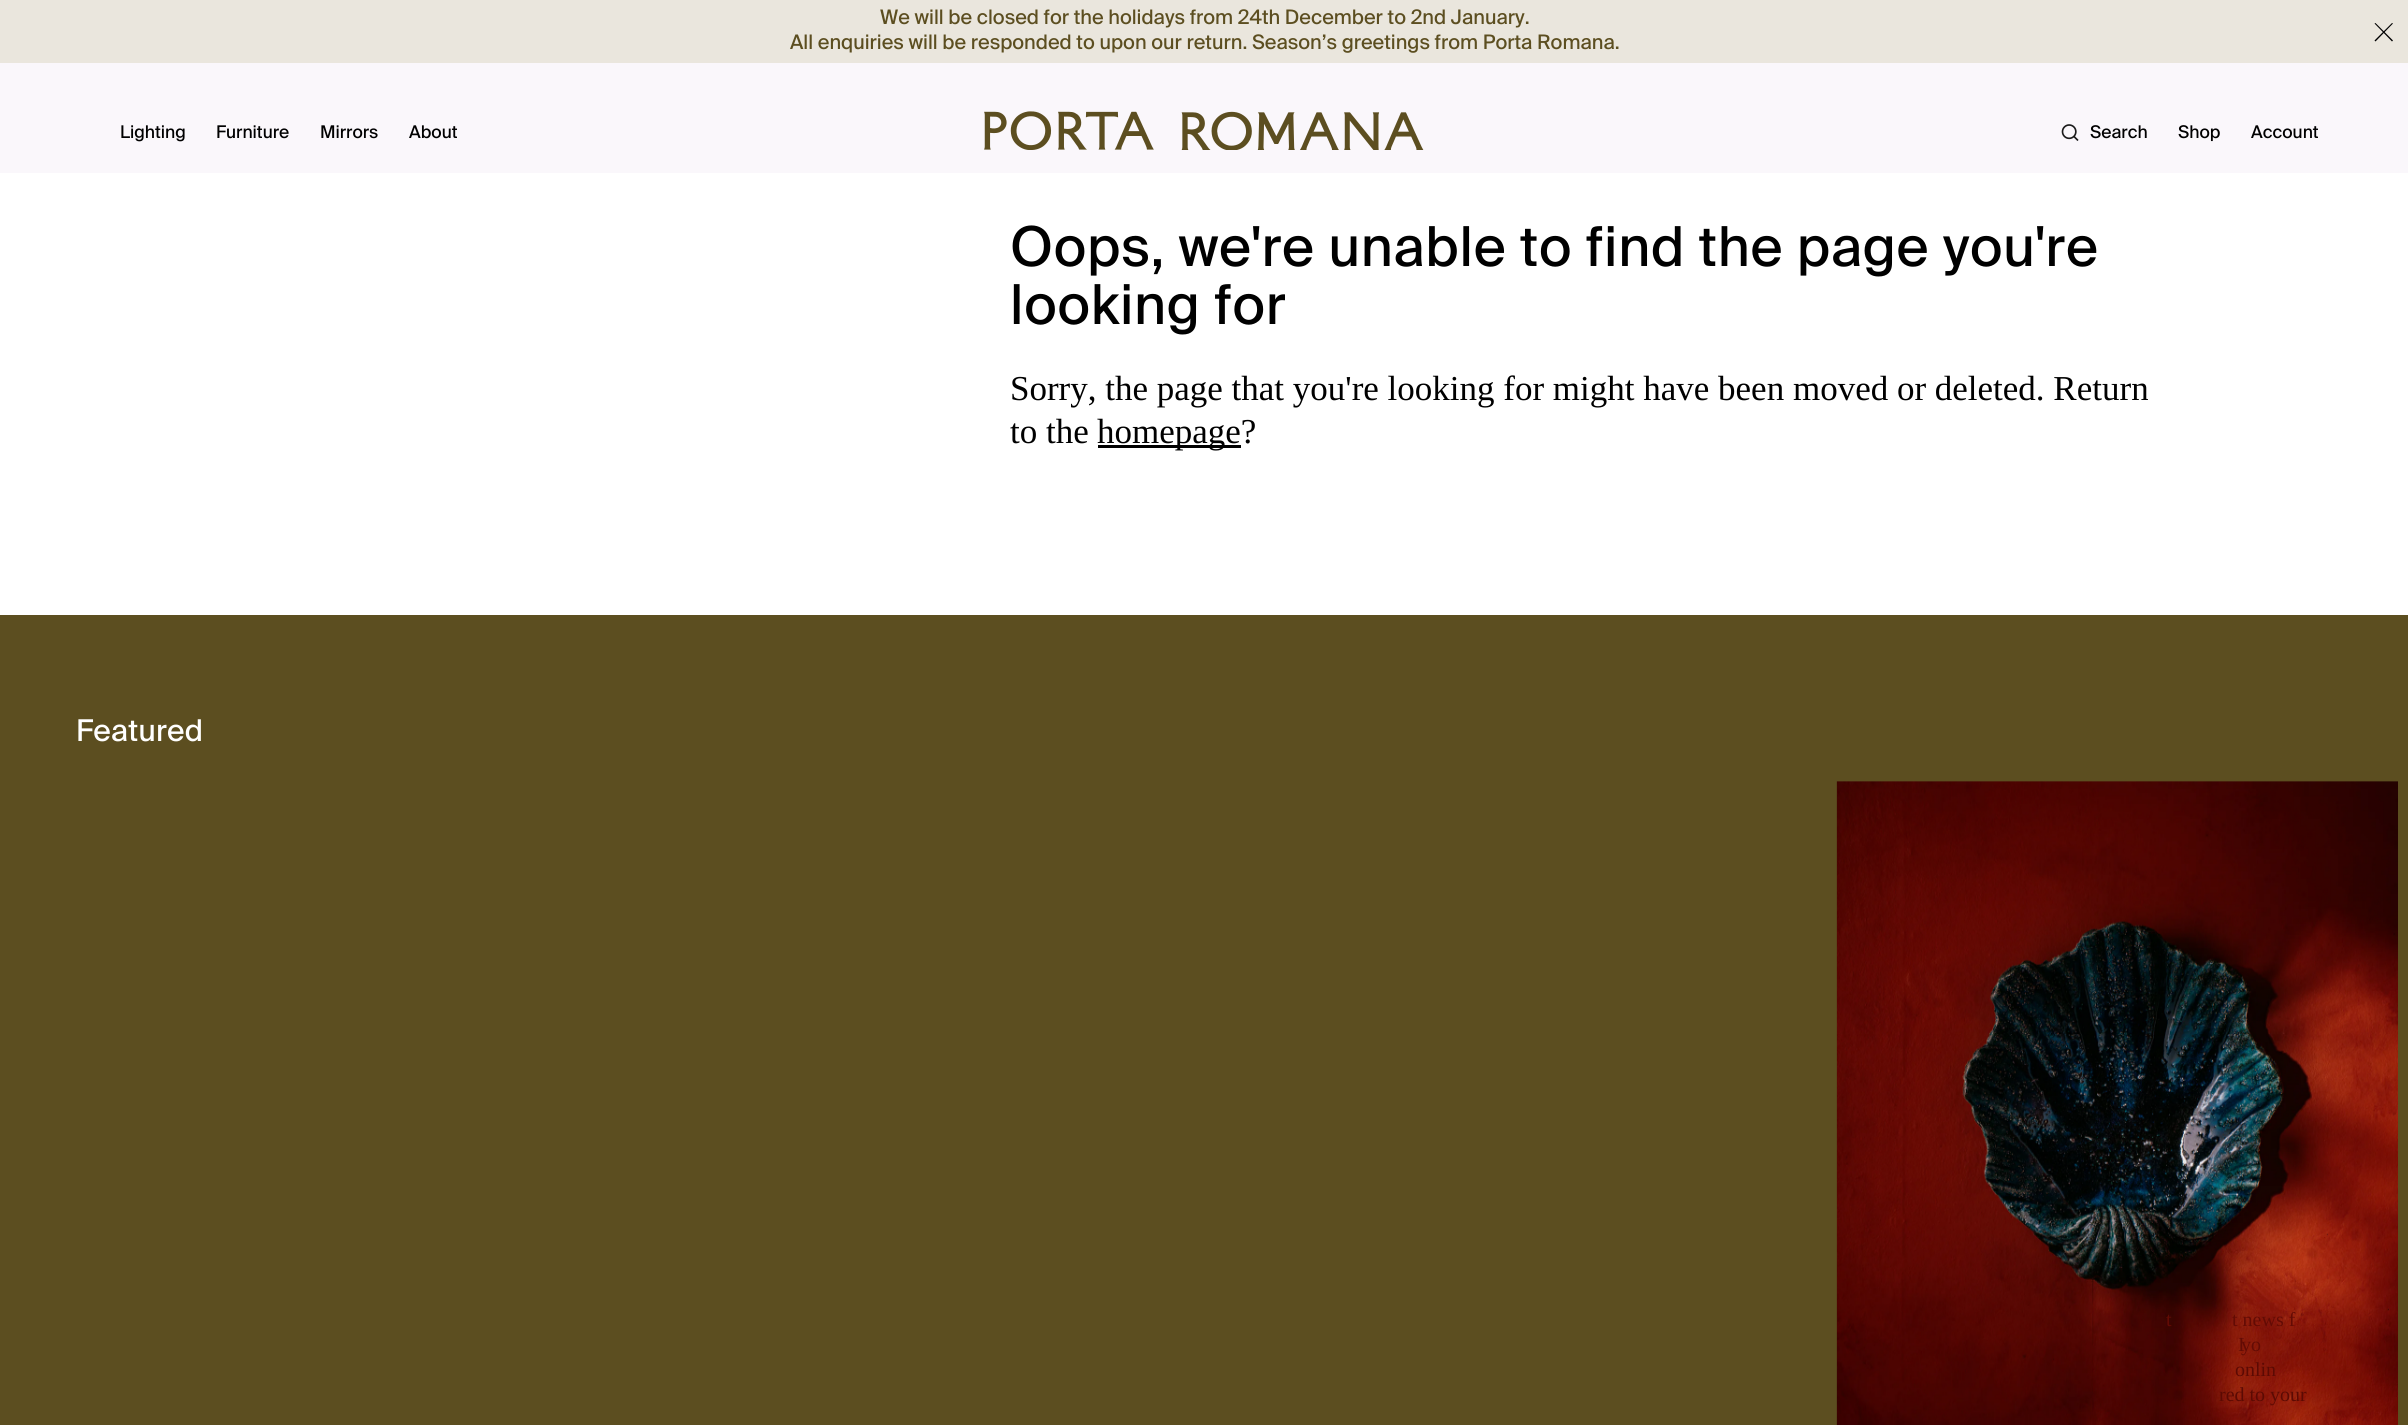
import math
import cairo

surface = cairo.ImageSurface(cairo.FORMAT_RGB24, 2408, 1425)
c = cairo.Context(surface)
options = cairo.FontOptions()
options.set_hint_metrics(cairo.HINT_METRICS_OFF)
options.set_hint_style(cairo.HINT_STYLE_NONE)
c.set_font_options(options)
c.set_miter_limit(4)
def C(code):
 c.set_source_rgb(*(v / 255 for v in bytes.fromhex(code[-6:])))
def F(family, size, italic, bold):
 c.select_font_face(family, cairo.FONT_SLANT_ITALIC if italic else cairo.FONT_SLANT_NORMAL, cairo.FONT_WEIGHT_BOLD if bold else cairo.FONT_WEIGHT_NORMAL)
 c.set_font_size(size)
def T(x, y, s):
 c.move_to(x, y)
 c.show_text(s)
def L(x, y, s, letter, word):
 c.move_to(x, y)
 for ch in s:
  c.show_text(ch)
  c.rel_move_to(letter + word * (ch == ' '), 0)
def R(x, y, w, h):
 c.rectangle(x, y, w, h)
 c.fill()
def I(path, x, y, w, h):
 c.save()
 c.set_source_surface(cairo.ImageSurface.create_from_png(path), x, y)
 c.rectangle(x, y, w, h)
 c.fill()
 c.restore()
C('ffffff')
c.paint()
C('eae6dd')
R(0,0,2408,63)
F('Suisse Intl',20,0,0)
C('5c4e20')
T(880,24,'We will be closed for the holidays from 24th December to 2nd January.')
T(790,49,'All enquiries will be responded to upon our return. Season’s greetings from Porta Romana.')
C('000000')
c.new_path()
c.move_to(2375.5,23)
c.line_to(2393,40.5)
c.line_to(2392,41.5)
c.line_to(2374.5,23.5)
c.close_path()
c.fill()
c.new_path()
c.move_to(2374.5,40.5)
c.line_to(2392,23)
c.line_to(2393,23.5)
c.line_to(2375.5,41.5)
c.close_path()
c.fill()
C('faf7fb')
R(0,63,2408,110)
F('Suisse Intl',17.5,0,0)
C('000000')
T(120,138,'Lighting')
T(216,138,'Furniture')
T(320,138,'Mirrors')
T(409,138,'About')
I('1.png',984,111,440,39)
I('2.png',2061,124,18,17)
T(2090,138,'Search')
T(2178,138,'Shop')
T(2251,138,'Account')
F('Suisse Intl',55,0,0)
L(1010,266,'Oops, we\'re unable to find the page you\'re',.75,0)
L(1010,324,'looking for',.75,0)
F('Liberation Serif',35,0,0)
T(1010,400,'Sorry, the page that you\'re looking for might have been moved or deleted. Return')
T(1010,443,'to the')
R(1098,445,143,3)
T(1097,443,'homepage?')
C('5c4e20')
R(0,615,2408,810)
F('Suisse Intl',30,0,0)
C('ffffff')
L(76,741,'Featured',.25,0)
I('3.png',1836,781,562,644)
F('Liberation Serif',20,0,0)
C('630b04')
T(2166,1326,'t')
T(2232,1326,'t news f')
T(2241,1351,'yo')
T(2238,1351,'I')
C('5c0a03')
T(2235,1376,'onlin')
T(2219,1401,'red to your')
surface.write_to_png('o.png')
